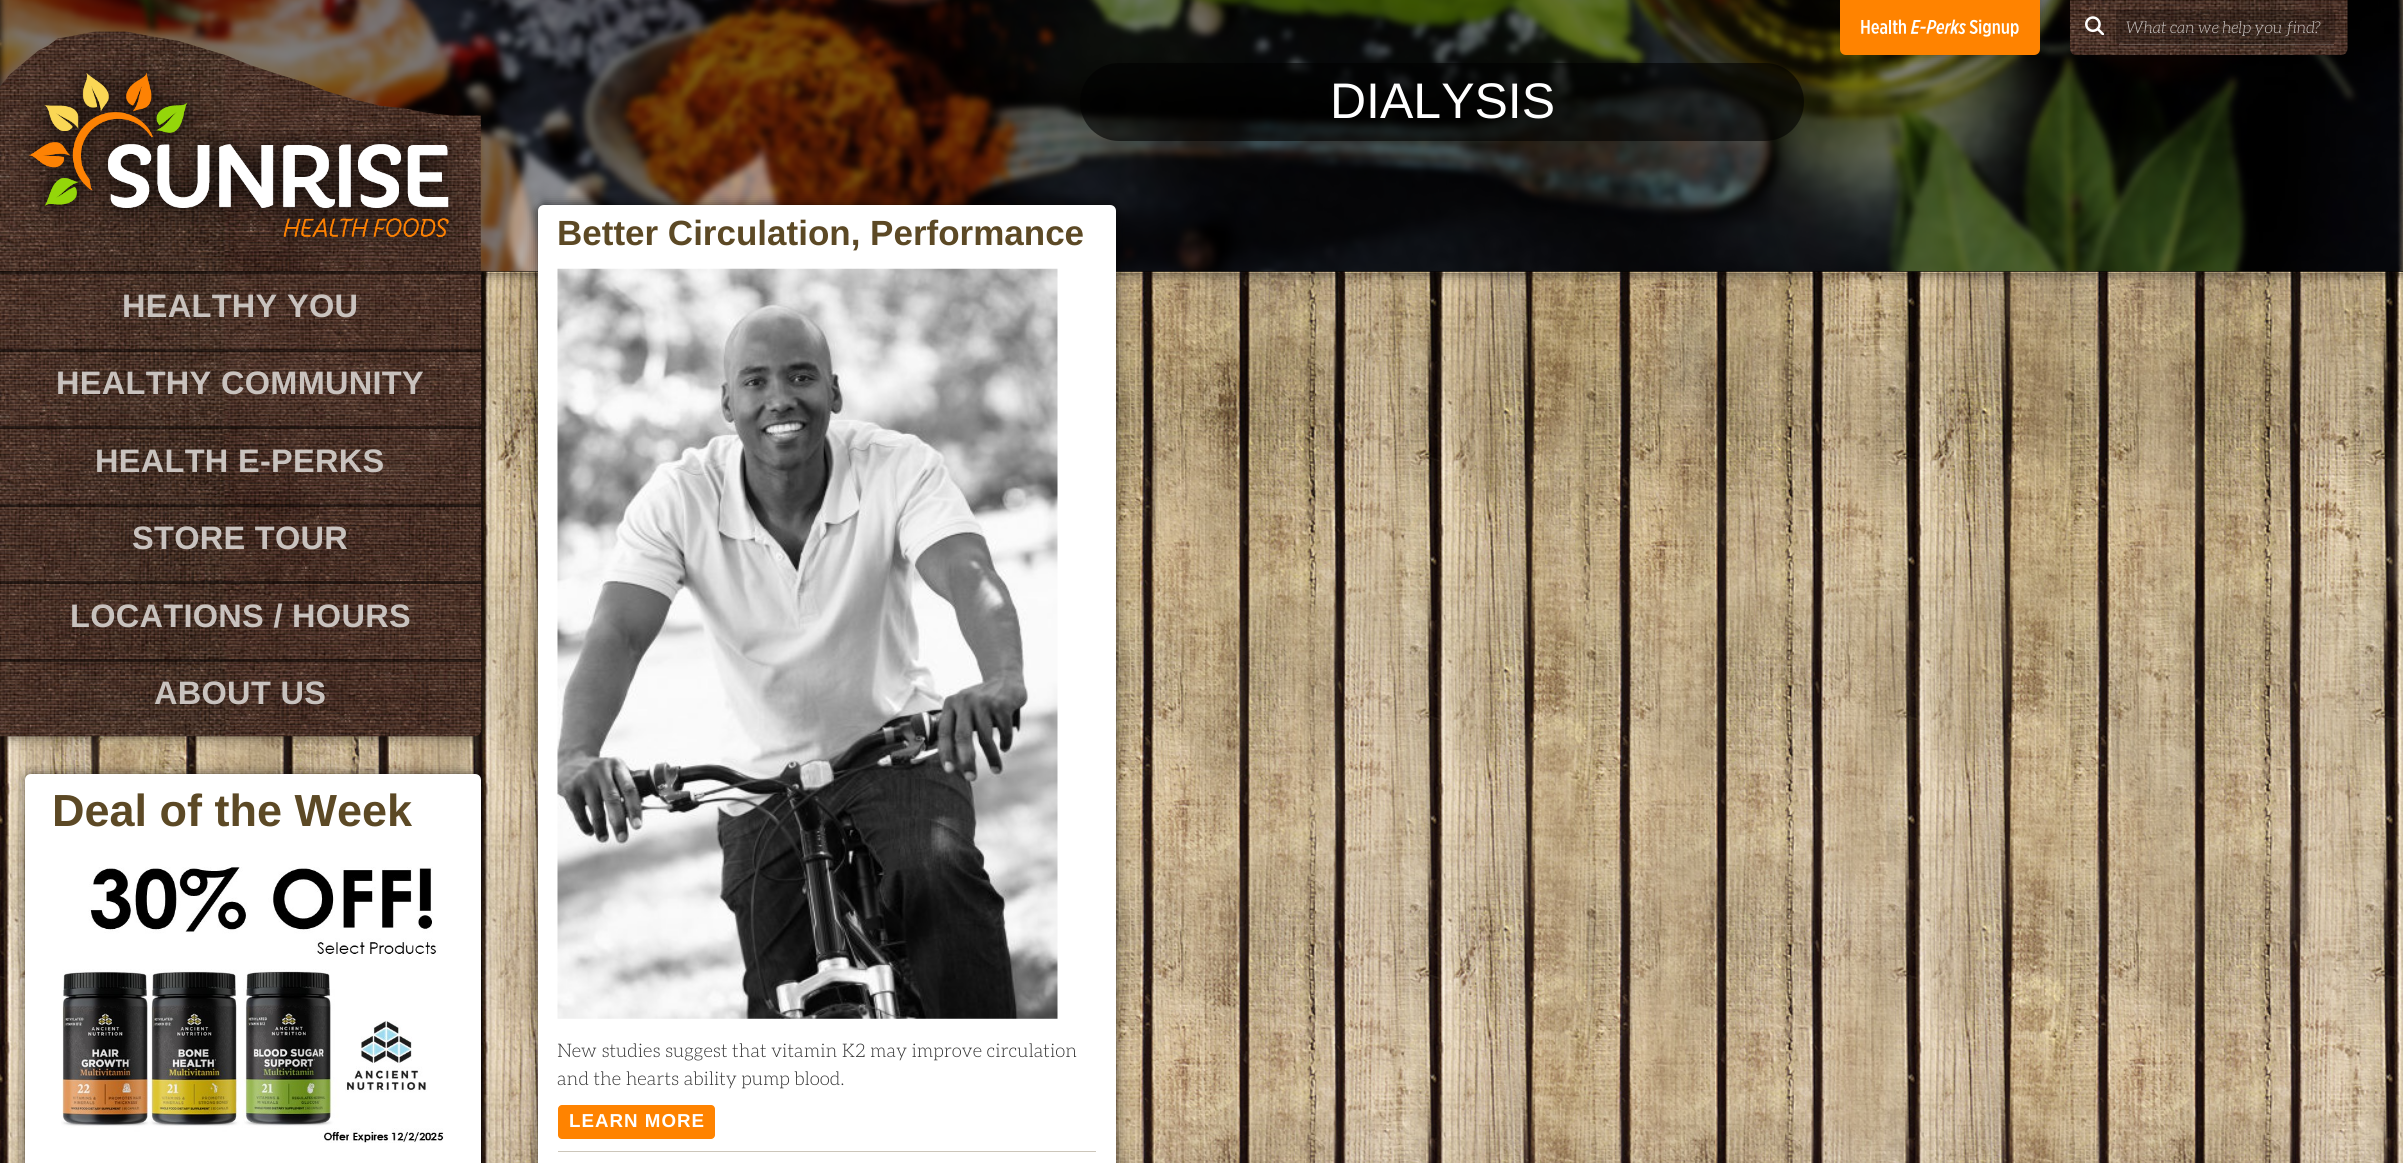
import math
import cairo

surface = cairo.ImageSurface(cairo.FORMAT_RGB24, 2403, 1163)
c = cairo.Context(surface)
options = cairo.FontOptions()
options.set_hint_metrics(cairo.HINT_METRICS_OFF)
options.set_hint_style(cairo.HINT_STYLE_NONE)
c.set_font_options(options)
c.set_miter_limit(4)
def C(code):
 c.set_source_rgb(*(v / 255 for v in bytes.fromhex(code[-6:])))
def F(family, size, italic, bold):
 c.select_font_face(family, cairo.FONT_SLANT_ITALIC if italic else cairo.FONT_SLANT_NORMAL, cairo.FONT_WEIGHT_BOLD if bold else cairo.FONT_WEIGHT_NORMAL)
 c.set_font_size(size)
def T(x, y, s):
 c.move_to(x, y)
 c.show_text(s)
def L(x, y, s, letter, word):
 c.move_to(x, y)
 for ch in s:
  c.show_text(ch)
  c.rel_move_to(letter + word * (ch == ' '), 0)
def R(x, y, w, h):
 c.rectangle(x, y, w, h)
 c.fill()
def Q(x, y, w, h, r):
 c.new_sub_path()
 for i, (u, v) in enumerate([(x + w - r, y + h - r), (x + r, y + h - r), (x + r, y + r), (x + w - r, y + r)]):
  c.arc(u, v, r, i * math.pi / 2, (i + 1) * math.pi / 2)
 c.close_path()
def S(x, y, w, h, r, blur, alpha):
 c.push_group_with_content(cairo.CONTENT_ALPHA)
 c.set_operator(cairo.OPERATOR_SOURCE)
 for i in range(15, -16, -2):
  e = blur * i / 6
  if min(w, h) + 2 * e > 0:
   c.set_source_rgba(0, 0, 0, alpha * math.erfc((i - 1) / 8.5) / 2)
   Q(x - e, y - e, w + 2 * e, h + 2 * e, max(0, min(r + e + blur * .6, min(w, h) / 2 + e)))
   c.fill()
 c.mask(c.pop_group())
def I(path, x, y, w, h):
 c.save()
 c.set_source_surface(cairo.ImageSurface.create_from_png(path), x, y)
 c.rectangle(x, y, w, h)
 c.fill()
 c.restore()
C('ffffff')
c.paint()
I('1.png',0,0,2403,1163)
c.save()
c.set_fill_rule(cairo.FILL_RULE_EVEN_ODD)
c.new_path()
c.move_to(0,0)
c.line_to(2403,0)
c.line_to(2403,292)
c.line_to(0,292)
c.close_path()
c.move_to(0,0)
c.line_to(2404,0)
c.line_to(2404,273)
c.line_to(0,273)
c.close_path()
c.clip()
C('000000')
S(0,0,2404,273,0,6,.6)
c.restore()
c.set_source_rgba(0,0,0,0.75)
R(0,271,2403,1)
I('2.png',0,0,2403,272)
C('000000')
S(1840,0,200,55,6,6,.3)
C('ff8300')
c.new_path()
c.move_to(1840,0)
c.line_to(2040,0)
c.line_to(2040,49)
c.curve_to(2040,52.5,2037.5,55,2034,55)
c.line_to(1846,55)
c.curve_to(1842.5,55,1840,52.5,1840,49)
c.close_path()
c.fill()
I('3.png',1861,19,158,18)
C('000000')
S(2070,0,278,55,6,6,.3)
I('4.png',2070,0,278,55)
I('5.png',2085,16,19,19)
c.set_source_rgba(0,0,0,0.2)
Q(2116,10,219,35,4)
c.fill()
c.set_source_rgba(1,1,1,0.2)
R(2119,44,215,1)
F('Aleo Light',16.25,1,0)
C('cec9c7')
T(2126,33,'What can we help you find?')
c.set_source_rgba(0,0,0,0.6)
Q(1080,63,724,78,39)
c.fill()
F('Liberation Sans',50,0,0)
C('ffffff')
T(1330,118,'DIALYSIS')
C('000000')
S(0,271,481,465,6,6,.6)
I('6.png',0,31,481,240)
I('7.png',23,68,433,179)
I('8.png',0,271,482,466)
c.set_source_rgba(0,0,0,0.5)
R(0,271,481,3)
F('Liberation Sans',32.5,0,1)
C('c8c2be')
L(122,317,'HEALTHY YOU',.3,0)
c.set_source_rgba(0,0,0,0.5)
R(0,349,481,3)
C('c8c2be')
L(56,394,'HEALTHY COMMUNITY',.3,0)
c.set_source_rgba(0,0,0,0.5)
R(0,426,481,3)
C('c8c2be')
L(95,472,'HEALTH E-PERKS',.3,0)
c.set_source_rgba(0,0,0,0.5)
R(0,504,481,3)
C('c8c2be')
L(132,549,'STORE TOUR',.3,0)
c.set_source_rgba(0,0,0,0.5)
R(0,581,481,3)
C('c8c2be')
L(70,627,'LOCATIONS / HOURS',.3,0)
c.set_source_rgba(0,0,0,0.5)
R(0,659,481,3)
C('c8c2be')
L(154,704,'ABOUT US',.3,0)
C('000000')
S(25,774,456,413,6,6,.6)
C('ffffff')
c.new_path()
c.move_to(31,774)
c.line_to(475,774)
c.curve_to(478.5,774,481,776.5,481,780)
c.line_to(481,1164)
c.line_to(25,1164)
c.line_to(25,780)
c.curve_to(25,776.5,27.5,774,31,774)
c.close_path()
c.fill()
F('Liberation Sans',45,0,1)
C('5c4925')
T(52,826,'Deal of the Week')
I('9.png',61,867,383,276)
C('000000')
S(538,205,578,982,6,6,.6)
C('ffffff')
c.new_path()
c.move_to(544,205)
c.line_to(1110,205)
c.curve_to(1113.5,205,1116,207.5,1116,211)
c.line_to(1116,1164)
c.line_to(538,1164)
c.line_to(538,211)
c.curve_to(538,207.5,540.5,205,544,205)
c.close_path()
c.fill()
F('Liberation Sans',35,0,1)
C('5c4925')
T(557,245,'Better Circulation, Performance')
I('10.png',557,268,501,751)
F('Aleo Light',18.75,0,0)
C('333333')
T(557,1057,'New studies suggest that vitamin K2 may improve circulation')
T(557,1085,'and the hearts ability pump blood.')
C('ff8300')
Q(558,1105,157,34,4)
c.fill()
F('Liberation Sans',18.75,0,1)
C('ffffff')
L(569,1127,'LEARN MORE',1,0)
C('ccc6ba')
R(558,1151,538,1)
surface.write_to_png('o.png')
